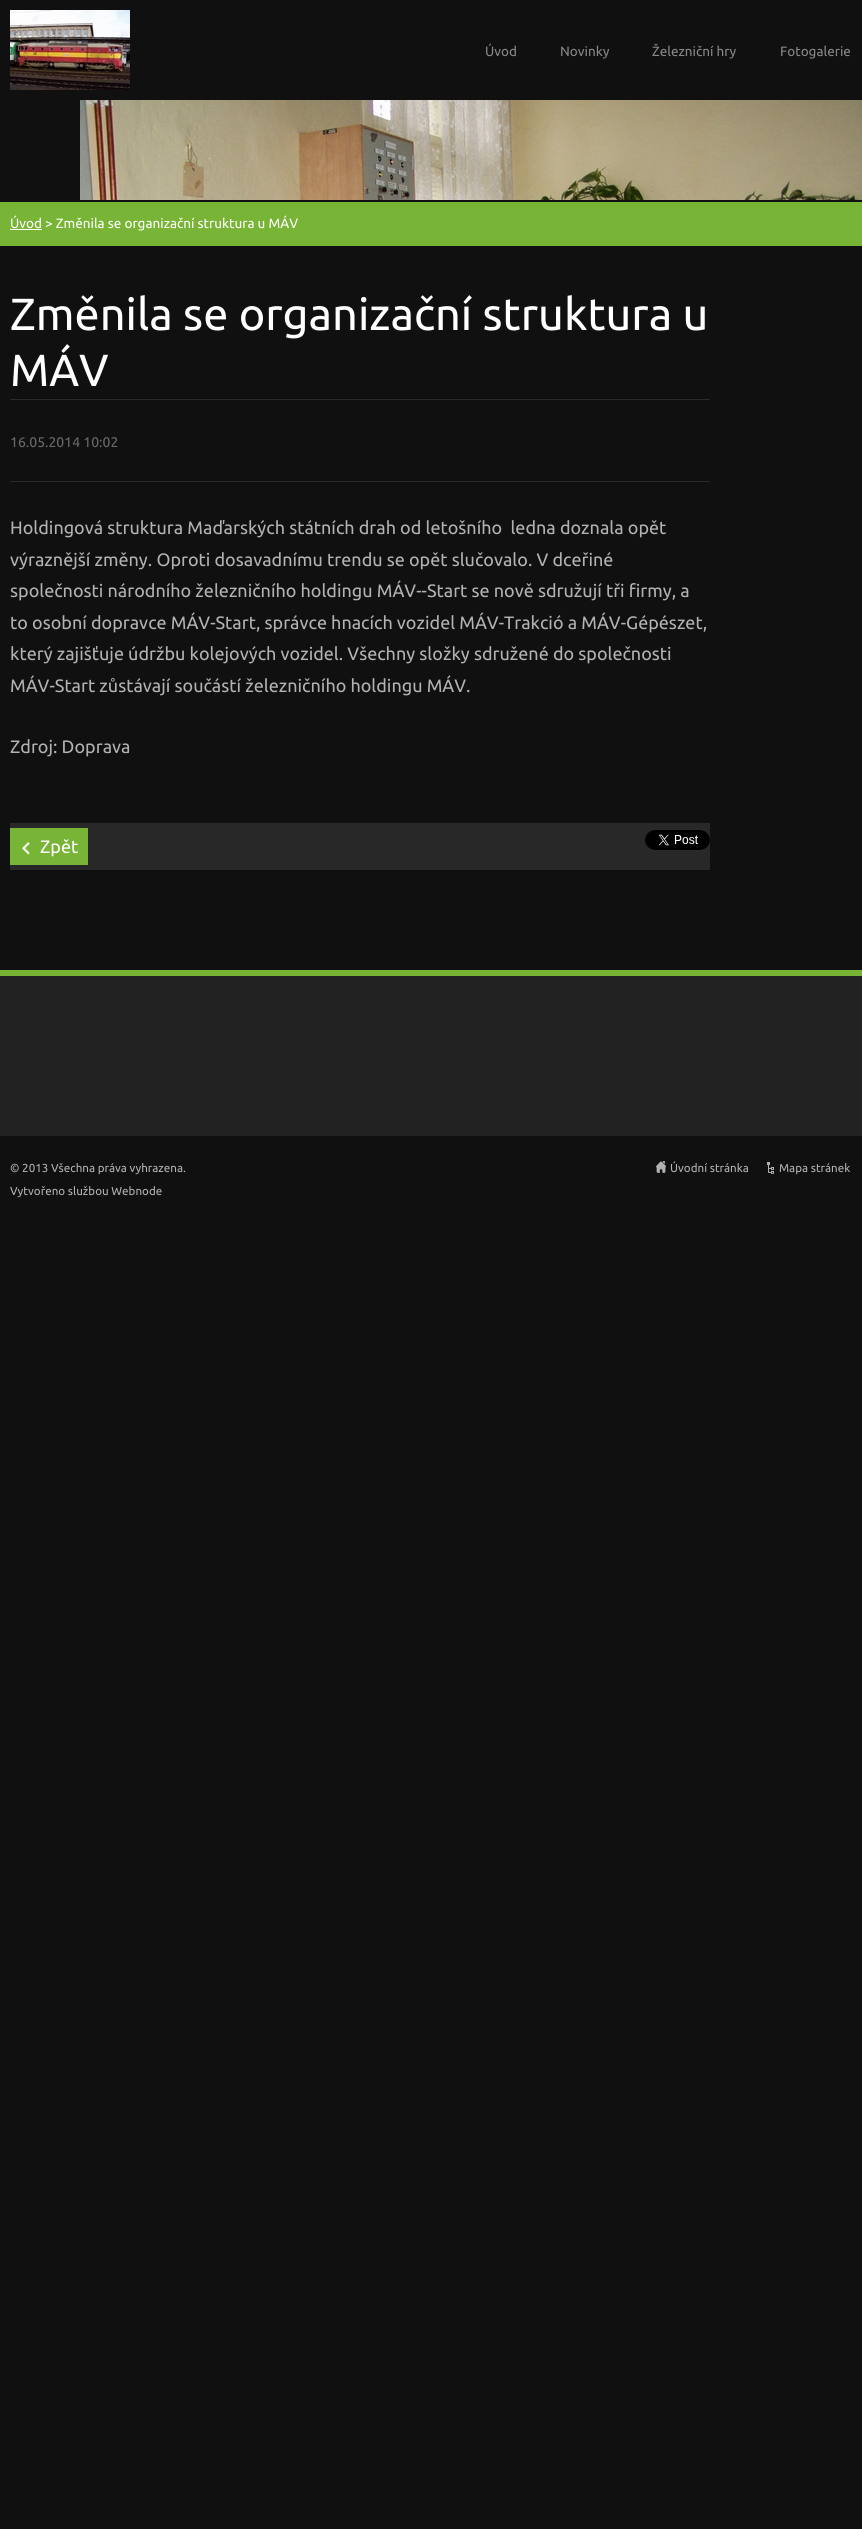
import math
import cairo

surface = cairo.ImageSurface(cairo.FORMAT_RGB24, 862, 2529)
c = cairo.Context(surface)
options = cairo.FontOptions()
options.set_hint_metrics(cairo.HINT_METRICS_OFF)
options.set_hint_style(cairo.HINT_STYLE_NONE)
c.set_font_options(options)
c.set_miter_limit(4)
def C(code):
 c.set_source_rgb(*(v / 255 for v in bytes.fromhex(code[-6:])))
def F(family, size, italic, bold):
 c.select_font_face(family, cairo.FONT_SLANT_ITALIC if italic else cairo.FONT_SLANT_NORMAL, cairo.FONT_WEIGHT_BOLD if bold else cairo.FONT_WEIGHT_NORMAL)
 c.set_font_size(size)
def T(x, y, s):
 c.move_to(x, y)
 c.show_text(s)
def R(x, y, w, h):
 c.rectangle(x, y, w, h)
 c.fill()
def I(path, x, y, w, h):
 c.save()
 c.set_source_surface(cairo.ImageSurface.create_from_png(path), x, y)
 c.rectangle(x, y, w, h)
 c.fill()
 c.restore()
C('101010')
c.paint()
I('1.png',10,10,120,80)
F('Ubuntu',13.5,0,0)
C('888888')
T(485,56,'Úvod')
T(560,56,'Novinky')
T(652,56,'Železniční hry')
T(780,56,'Fotogalerie')
I('2.png',80,100,782,100)
C('78b536')
R(0,202,862,44)
C('ffffff')
R(10,229,32,1)
T(10,228,'Úvod > Změnila se organizační struktura u MÁV')
C('2a2a2a')
R(10,399,700,1)
F('Ubuntu',45,0,0)
C('ffffff')
T(10,330,'Změnila se organizační struktura u')
T(10,386,'MÁV')
F('Ubuntu',14,0,0)
C('696969')
T(10,447,'16.05.2014 10:02')
C('2a2a2a')
R(10,481,700,1)
F('Ubuntu',18,0,0)
C('b2b2b2')
T(10,534,'Holdingová struktura Maďarských státních drah od letošního  ledna doznala opět')
T(10,566,'výraznější změny. Oproti dosavadnímu trendu se opět slučovalo. V dceřiné')
T(10,597,'společnosti národního železničního holdingu MÁV--Start se nově sdružují tři firmy, a')
T(10,629,'to osobní dopravce MÁV-Start, správce hnacích vozidel MÁV-Trakció a MÁV-Gépészet,')
T(10,660,'který zajišťuje údržbu kolejových vozidel. Všechny složky sdružené do společnosti')
T(10,692,'MÁV-Start zůstávají součástí železničního holdingu MÁV.')
T(10,753,'Zdroj: Doprava')
C('282828')
R(10,823,700,47)
C('78b536')
R(10,828,78,37)
I('3.png',22,841,8,14)
C('ffffff')
T(40,853,'Zpět')
I('4.png',645,830,65,20)
C('222222')
R(0,976,862,160)
C('78b536')
R(0,970,862,6)
F('Ubuntu',11.6,0,0)
C('b2b2b2')
T(10,1172,'© 2013 Všechna práva vyhrazena.')
T(10,1195,'Vytvořeno službou Webnode')
I('5.png',656,1161,10,12)
T(670,1172,'Úvodní stránka')
I('6.png',767,1162,7,12)
T(779,1172,'Mapa stránek')
surface.write_to_png('o.png')
